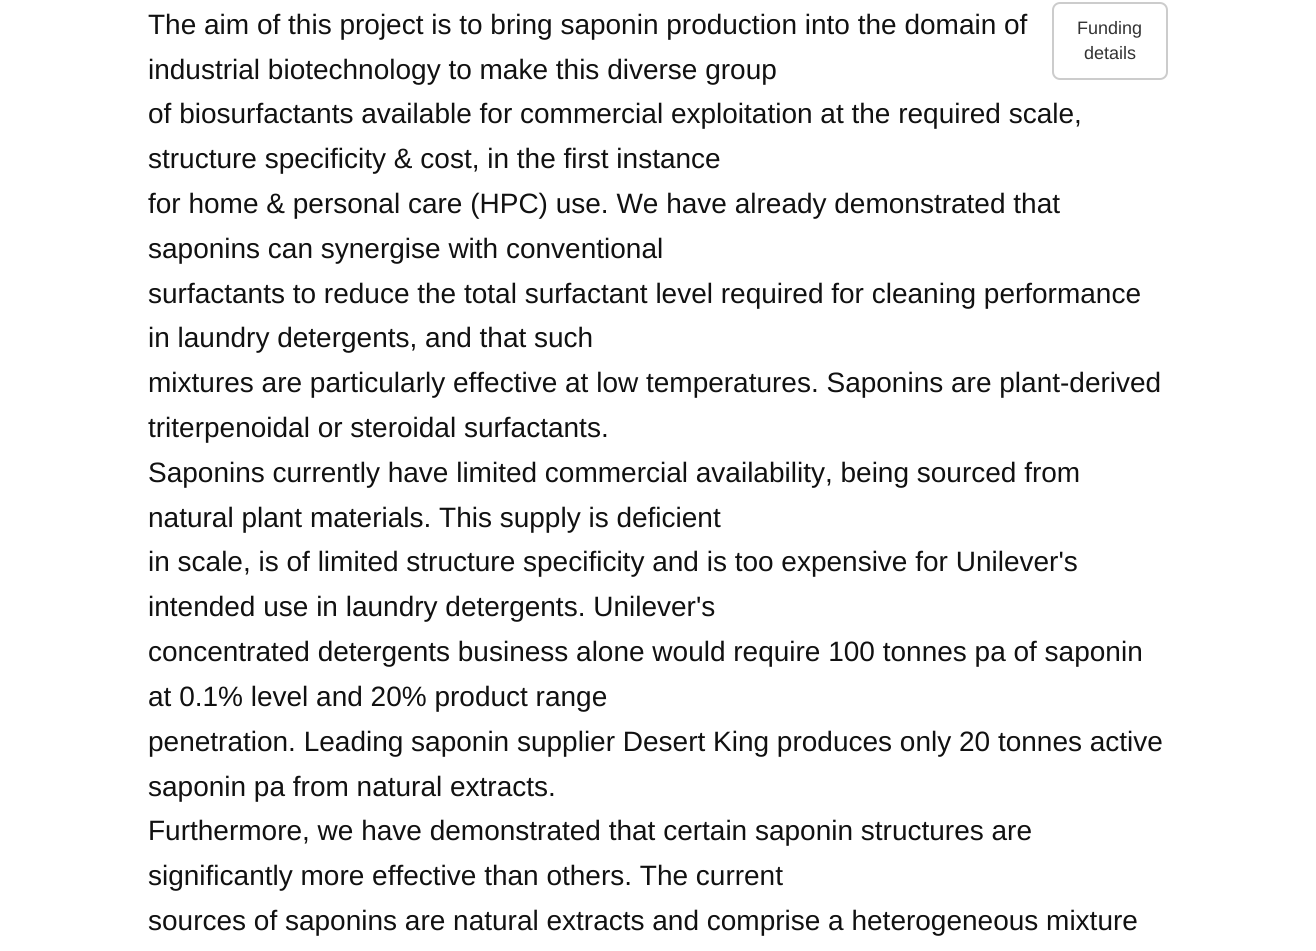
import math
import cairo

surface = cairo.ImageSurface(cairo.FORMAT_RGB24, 1316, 951)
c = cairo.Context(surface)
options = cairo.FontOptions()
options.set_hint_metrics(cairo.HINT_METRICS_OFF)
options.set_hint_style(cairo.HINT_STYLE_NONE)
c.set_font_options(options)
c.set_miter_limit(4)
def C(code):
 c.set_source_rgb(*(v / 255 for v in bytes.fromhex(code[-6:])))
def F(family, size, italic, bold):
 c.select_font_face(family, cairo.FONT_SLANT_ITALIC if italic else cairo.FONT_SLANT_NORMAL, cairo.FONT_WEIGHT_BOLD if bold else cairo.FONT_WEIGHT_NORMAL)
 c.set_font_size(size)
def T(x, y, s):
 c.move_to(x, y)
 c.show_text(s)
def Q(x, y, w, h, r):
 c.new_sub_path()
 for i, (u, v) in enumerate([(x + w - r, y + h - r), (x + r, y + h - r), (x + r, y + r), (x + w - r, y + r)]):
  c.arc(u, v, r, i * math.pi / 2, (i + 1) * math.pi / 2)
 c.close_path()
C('ffffff')
c.paint()
F('Liberation Sans',28,0,0)
C('111111')
T(148,34,'The aim of this project is to bring saponin production into the domain of')
Q(1053,3,114,76,7)
C('cccccc')
c.stroke()
F('Liberation Sans',18,0,0)
C('333333')
T(1077,34,'Funding')
T(1084,59,'details')
F('Liberation Sans',28,0,0)
C('111111')
T(148,79,'industrial biotechnology to make this diverse group')
T(148,123,'of biosurfactants available for commercial exploitation at the required scale,')
T(148,168,'structure specificity & cost, in the first instance')
T(148,213,'for home & personal care (HPC) use. We have already demonstrated that')
T(148,258,'saponins can synergise with conventional')
T(148,303,'surfactants to reduce the total surfactant level required for cleaning performance')
T(148,347,'in laundry detergents, and that such')
T(148,392,'mixtures are particularly effective at low temperatures. Saponins are plant-derived')
T(148,437,'triterpenoidal or steroidal surfactants.')
T(148,482,'Saponins currently have limited commercial availability, being sourced from')
T(148,527,'natural plant materials. This supply is deficient')
T(148,571,'in scale, is of limited structure specificity and is too expensive for Unilever\'s')
T(148,616,'intended use in laundry detergents. Unilever\'s')
T(148,661,'concentrated detergents business alone would require 100 tonnes pa of saponin')
T(148,706,'at 0.1% level and 20% product range')
T(148,751,'penetration. Leading saponin supplier Desert King produces only 20 tonnes active')
T(148,796,'saponin pa from natural extracts.')
T(148,840,'Furthermore, we have demonstrated that certain saponin structures are')
T(148,885,'significantly more effective than others. The current')
T(148,930,'sources of saponins are natural extracts and comprise a heterogeneous mixture')
surface.write_to_png('o.png')
